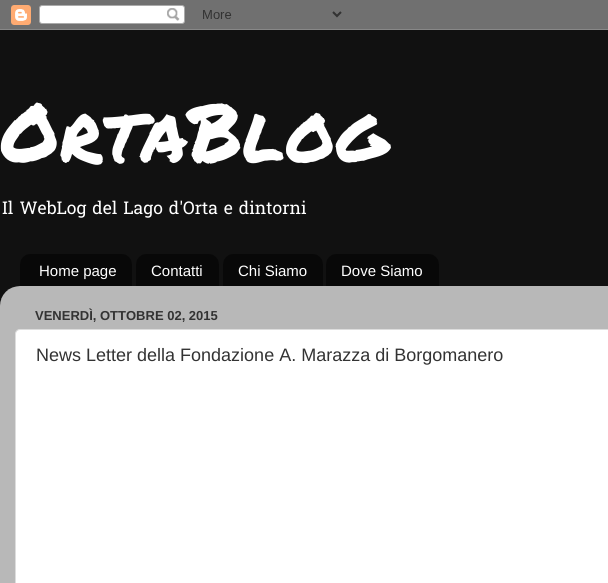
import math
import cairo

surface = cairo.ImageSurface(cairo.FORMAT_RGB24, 608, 583)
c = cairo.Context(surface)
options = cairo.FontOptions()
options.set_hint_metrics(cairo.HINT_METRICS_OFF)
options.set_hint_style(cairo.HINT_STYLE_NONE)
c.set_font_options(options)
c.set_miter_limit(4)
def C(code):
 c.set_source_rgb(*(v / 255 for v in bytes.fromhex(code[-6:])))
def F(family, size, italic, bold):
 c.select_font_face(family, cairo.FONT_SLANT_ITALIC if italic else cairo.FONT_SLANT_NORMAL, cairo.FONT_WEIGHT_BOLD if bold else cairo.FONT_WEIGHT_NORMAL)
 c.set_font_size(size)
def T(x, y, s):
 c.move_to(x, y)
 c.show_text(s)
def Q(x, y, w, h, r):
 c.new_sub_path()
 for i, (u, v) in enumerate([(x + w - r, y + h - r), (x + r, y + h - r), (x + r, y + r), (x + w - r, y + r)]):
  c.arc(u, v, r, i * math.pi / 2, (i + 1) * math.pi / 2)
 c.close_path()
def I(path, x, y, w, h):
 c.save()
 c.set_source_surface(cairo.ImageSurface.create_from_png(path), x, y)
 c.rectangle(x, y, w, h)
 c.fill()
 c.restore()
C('111111')
c.paint()
I('1.png',0,0,608,30)
F('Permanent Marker',80,0,0)
C('ffffff')
T(0,162,'OrtaBlog')
F('Hanuman',17.5,0,0)
T(2,214,'Il WebLog del Lago d\'Orta e dintorni')
I('2.png',20,254,112,32)
F('Liberation Sans',15,0,0)
T(39,276,'Home page')
I('3.png',136,254,83,32)
T(151,276,'Contatti')
I('4.png',223,254,100,32)
T(238,276,'Chi Siamo')
I('5.png',326,254,113,32)
T(341,276,'Dove Siamo')
I('6.png',0,286,608,297)
F('Liberation Sans',13,0,1)
C('333333')
T(35,320,'VENERDÌ, OTTOBRE 02, 2015')
C('ffffff')
Q(15.5,329.5,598,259,4.5)
c.fill_preserve()
C('dddddd')
c.set_line_width(1)
c.stroke()
F('Liberation Sans',18,0,0)
C('333333')
T(36,361,'News Letter della Fondazione A. Marazza di Borgomanero')
surface.write_to_png('o.png')
